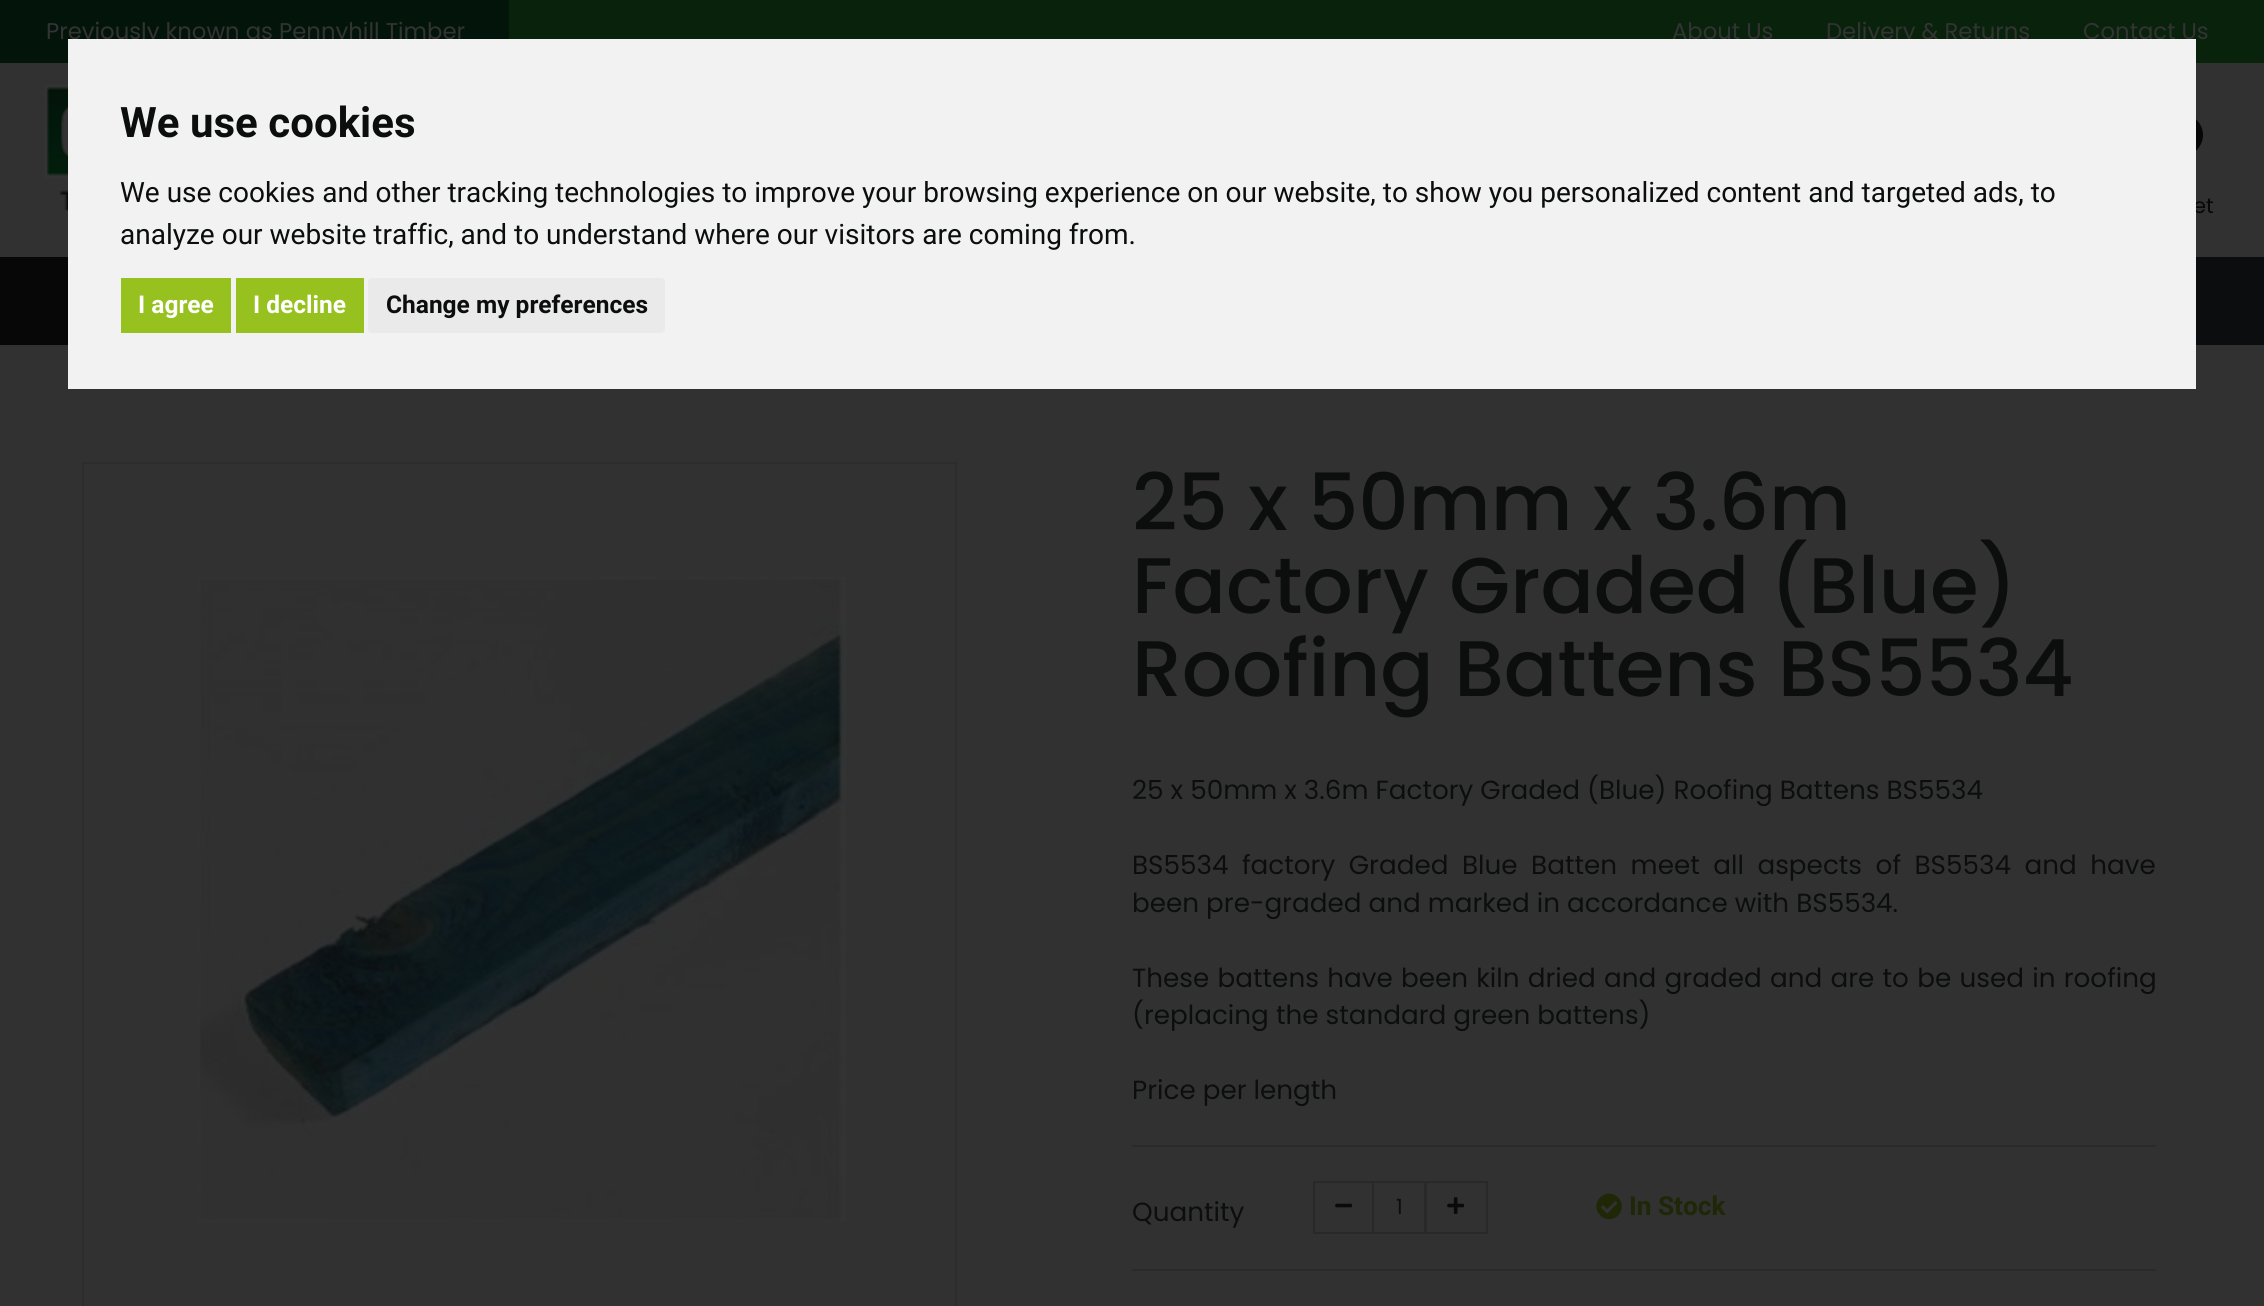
import math
import cairo

surface = cairo.ImageSurface(cairo.FORMAT_RGB24, 2264, 1306)
c = cairo.Context(surface)
options = cairo.FontOptions()
options.set_hint_metrics(cairo.HINT_METRICS_OFF)
options.set_hint_style(cairo.HINT_STYLE_NONE)
c.set_font_options(options)
c.set_miter_limit(4)
def C(code):
 c.set_source_rgb(*(v / 255 for v in bytes.fromhex(code[-6:])))
def F(family, size, italic, bold):
 c.select_font_face(family, cairo.FONT_SLANT_ITALIC if italic else cairo.FONT_SLANT_NORMAL, cairo.FONT_WEIGHT_BOLD if bold else cairo.FONT_WEIGHT_NORMAL)
 c.set_font_size(size)
def T(x, y, s):
 c.move_to(x, y)
 c.show_text(s)
def L(x, y, s, letter, word):
 c.move_to(x, y)
 for ch in s:
  c.show_text(ch)
  c.rel_move_to(letter + word * (ch == ' '), 0)
def R(x, y, w, h):
 c.rectangle(x, y, w, h)
 c.fill()
def Q(x, y, w, h, r):
 c.new_sub_path()
 for i, (u, v) in enumerate([(x + w - r, y + h - r), (x + r, y + h - r), (x + r, y + r), (x + w - r, y + r)]):
  c.arc(u, v, r, i * math.pi / 2, (i + 1) * math.pi / 2)
 c.close_path()
def I(path, x, y, w, h):
 c.save()
 c.set_source_surface(cairo.ImageSurface.create_from_png(path), x, y)
 c.rectangle(x, y, w, h)
 c.fill()
 c.restore()
C('313131')
c.paint()
C('08220c')
R(509,0,1755,63)
C('03150a')
R(0,0,509,63)
F('Poppins',22.75,0,0)
C('333333')
T(46,39,'Previously known as Pennyhill Timber')
T(1672,39,'About Us')
T(1826,39,'Delivery & Returns')
T(2083,39,'Contact Us')
I('1.png',44,84,24,128)
C('070707')
c.arc(2182,135,21,0,2 * math.pi)
c.fill()
F('Poppins',21,0,0)
T(2193,213,'et')
C('f2f2f2')
R(68,39,2128,350)
F('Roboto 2',42,0,1)
C('0c0e0e')
T(120,137,'We use cookies')
F('Roboto',28,0,0)
T(120,202,'We use cookies and other tracking technologies to improve your browsing experience on our website, to show you personalized content and targeted ads, to')
T(120,244,'analyze our website traffic, and to understand where our visitors are coming from.')
C('96c11f')
R(121,278,110,55)
F('Roboto 2',24.5,0,1)
C('ffffff')
T(138,313,'I agree')
C('96c11f')
R(236,278,128,55)
C('ffffff')
T(253,313,'I decline')
C('eaeaea')
Q(368,278,297,55,4)
c.fill()
C('0c0e0e')
T(386,313,'Change my preferences')
C('0c0d0e')
R(2196,257,68,88)
C('070707')
R(0,257,68,88)
c.rectangle(83,463,873,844)
C('2c2c2c')
c.stroke()
I('2.png',198,577,648,645)
F('Poppins Medium',78.75,0,0)
C('0c0e0e')
T(1132,530,'25 x 50mm x 3.6m')
T(1132,613,'Factory Graded (Blue)')
T(1132,696,'Roofing Battens BS5534')
F('Poppins',26.25,0,0)
T(1132,799,'25 x 50mm x 3.6m Factory Graded (Blue) Roofing Battens BS5534')
L(1132,874,'BS5534 factory Graded Blue Batten meet all aspects of BS5534 and have',0,6.5)
T(1132,912,'been pre-graded and marked in accordance with BS5534.')
L(1132,987,'These battens have been kiln dried and graded and are to be used in roofing',0,1.25)
T(1132,1024,'(replacing the standard green battens)')
T(1132,1099,'Price per length')
C('2a2a2a')
R(1132,1145,1024,2)
C('0c0e0e')
T(1132,1221,'Quantity')
c.rectangle(1314,1182,59,51)
C('292929')
c.stroke()
I('3.png',1335,1203,18,5)
c.rectangle(1426,1182,61,51)
c.stroke()
c.rectangle(1373,1182,52,51)
c.stroke()
F('Poppins',21,0,0)
C('0c0e0e')
T(1396,1214,'1')
I('4.png',1447,1197,18,17)
I('5.png',1596,1193,26,27)
F('Roboto',26.25,0,1)
C('1e2706')
T(1629,1215,'In Stock')
C('2a2a2a')
R(1132,1269,1024,2)
surface.write_to_png('o.png')
